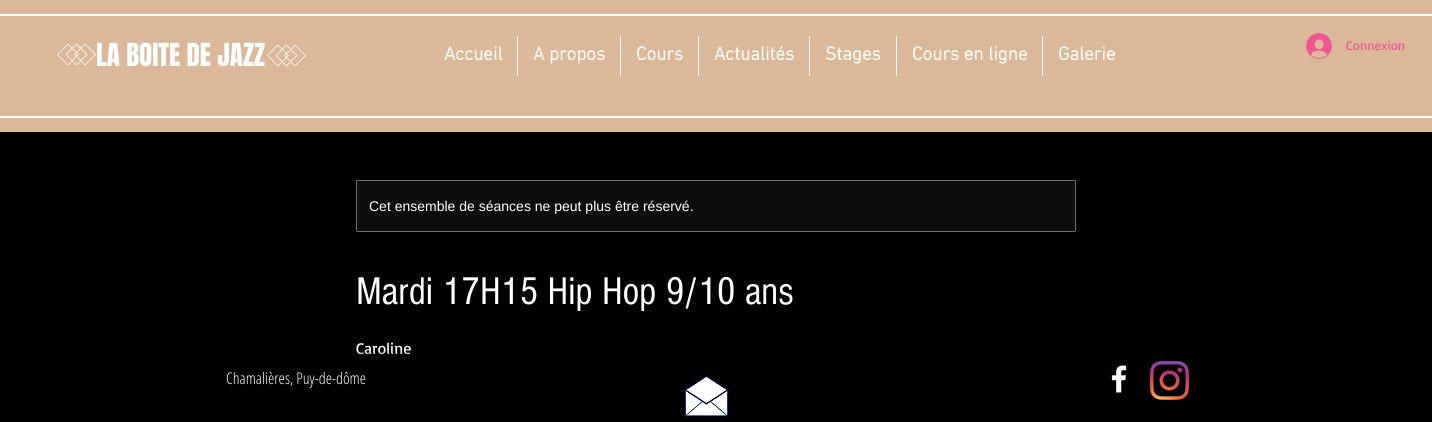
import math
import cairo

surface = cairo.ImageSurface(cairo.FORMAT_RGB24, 1432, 422)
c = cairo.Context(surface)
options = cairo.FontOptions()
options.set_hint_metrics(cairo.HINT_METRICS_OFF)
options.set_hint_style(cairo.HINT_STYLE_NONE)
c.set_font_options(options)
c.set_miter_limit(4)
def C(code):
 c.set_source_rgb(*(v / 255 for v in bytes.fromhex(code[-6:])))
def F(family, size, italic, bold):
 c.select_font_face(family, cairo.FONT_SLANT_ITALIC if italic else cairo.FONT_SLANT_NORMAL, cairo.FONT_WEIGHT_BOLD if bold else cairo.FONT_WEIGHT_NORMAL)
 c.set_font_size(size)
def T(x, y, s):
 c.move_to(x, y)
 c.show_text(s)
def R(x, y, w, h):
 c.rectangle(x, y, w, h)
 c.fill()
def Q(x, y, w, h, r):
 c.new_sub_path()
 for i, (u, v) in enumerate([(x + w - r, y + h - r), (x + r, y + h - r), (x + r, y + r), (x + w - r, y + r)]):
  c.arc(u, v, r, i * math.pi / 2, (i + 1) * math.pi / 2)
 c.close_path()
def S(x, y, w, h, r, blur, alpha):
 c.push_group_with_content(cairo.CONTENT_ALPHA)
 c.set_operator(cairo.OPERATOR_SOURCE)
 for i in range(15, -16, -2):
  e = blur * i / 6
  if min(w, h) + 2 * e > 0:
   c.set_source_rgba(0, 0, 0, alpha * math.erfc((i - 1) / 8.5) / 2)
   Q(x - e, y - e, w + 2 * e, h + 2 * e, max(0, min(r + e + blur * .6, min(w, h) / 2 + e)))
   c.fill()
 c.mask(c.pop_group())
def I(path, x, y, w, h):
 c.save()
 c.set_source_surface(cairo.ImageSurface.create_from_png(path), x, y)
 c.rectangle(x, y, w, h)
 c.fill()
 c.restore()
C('dbb89a')
c.paint()
C('ffffff')
R(0,14,1432,2)
R(0,116,1432,2)
I('1.png',57,43,39,23)
F('Anton',27,0,0)
T(96,66,'LA BOITE DE JAZZ')
I('1.png',267,44,39,23)
F('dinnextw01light',19,0,1)
T(444,60,'Accueil')
R(517,36,1,40)
T(533,60,'A propos')
R(620,36,1,40)
T(636,60,'Cours')
R(698,36,1,40)
T(714,60,'Actualités')
R(809,36,1,40)
T(825,60,'Stages')
R(896,36,1,40)
T(912,60,'Cours en ligne')
R(1042,36,1,40)
T(1058,60,'Galerie')
I('2.png',1306,33,26,26)
F('Basic',13,0,0)
C('f05694')
T(1346,50,'Connexion')
C('000000')
R(0,132,1432,223)
C('0d0d0d')
Q(356.5,180.5,719,51,1.5)
c.fill_preserve()
C('6e6e6e')
c.set_line_width(1)
c.stroke()
F('Liberation Sans',14,0,0)
C('ffffff')
T(369,211,'Cet ensemble de séances ne peut plus être réservé.')
F('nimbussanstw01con',40,0,0)
T(356,304,'Mardi 17H15 Hip Hop 9/10 ans')
F('Basic',16,0,0)
T(356,354,'Caroline')
C('000000')
S(0,355,1432,67,0,2.5,.7)
C('000000')
R(0,355,1432,67)
F('Open Sans Condensed Light',16,0,0)
C('ffffff')
T(226,384,'Chamalières, Puy-de-dôme')
I('3.png',684,375,45,42)
I('4.png',1111,365,16,28)
I('5.png',1150,361,39,39)
surface.write_to_png('o.png')
